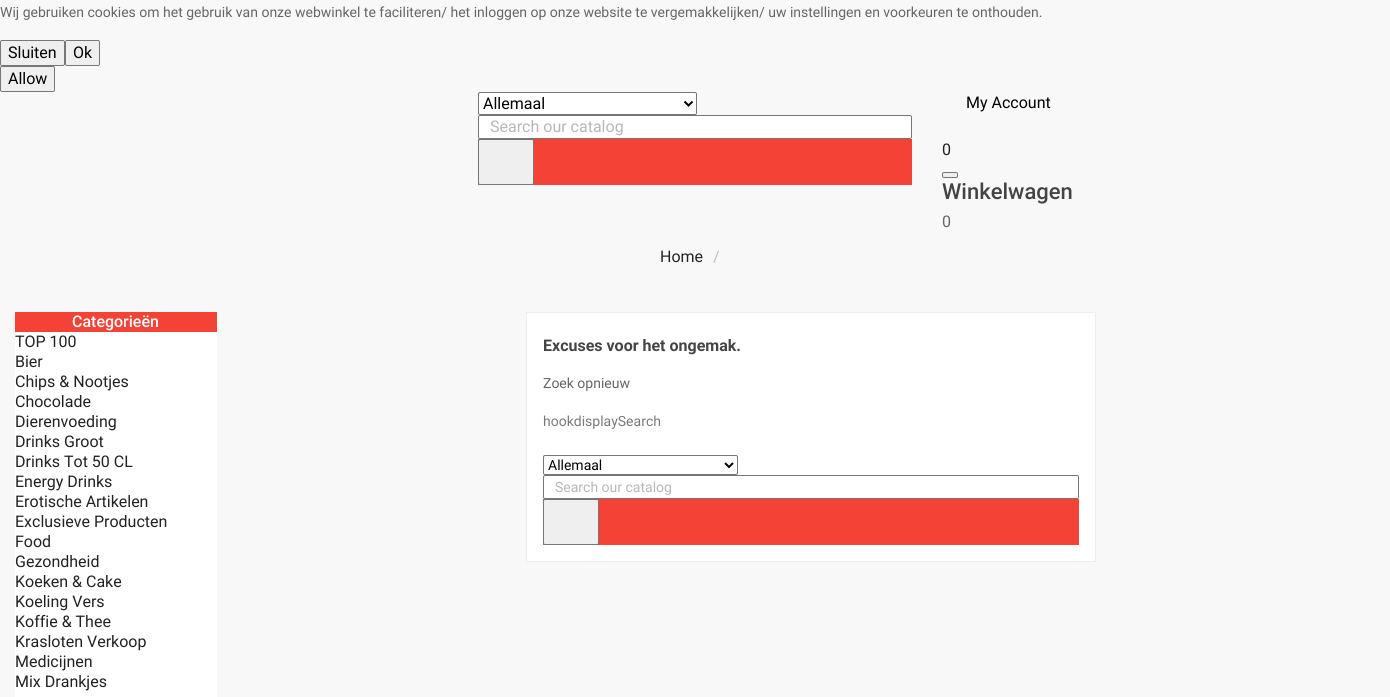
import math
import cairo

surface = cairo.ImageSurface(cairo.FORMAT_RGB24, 1390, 697)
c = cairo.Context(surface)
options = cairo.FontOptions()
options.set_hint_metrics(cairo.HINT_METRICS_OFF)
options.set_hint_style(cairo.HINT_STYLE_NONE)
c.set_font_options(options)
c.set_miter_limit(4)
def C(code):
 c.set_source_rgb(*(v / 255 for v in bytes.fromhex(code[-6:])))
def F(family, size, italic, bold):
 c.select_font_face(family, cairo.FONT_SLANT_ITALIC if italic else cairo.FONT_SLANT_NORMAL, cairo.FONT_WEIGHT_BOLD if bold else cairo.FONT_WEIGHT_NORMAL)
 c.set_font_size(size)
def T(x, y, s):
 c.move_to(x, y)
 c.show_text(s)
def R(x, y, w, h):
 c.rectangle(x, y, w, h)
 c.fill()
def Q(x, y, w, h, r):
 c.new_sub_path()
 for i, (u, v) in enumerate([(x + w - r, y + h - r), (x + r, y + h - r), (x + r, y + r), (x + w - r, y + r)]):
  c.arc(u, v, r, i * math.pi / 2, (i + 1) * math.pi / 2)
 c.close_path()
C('f8f8f8')
c.paint()
F('Roboto',14,0,0)
C('666666')
T(0,17,'Wij gebruiken cookies om het gebruik van onze webwinkel te faciliteren/ het inloggen op onze website te vergemakkelijken/ uw instellingen en voorkeuren te onthouden.')
C('efefef')
Q(.5,40.5,64,25,1.5)
c.fill_preserve()
C('767676')
c.set_line_width(1)
c.stroke()
F('Roboto',16,0,0)
C('000000')
T(8,58,'Sluiten')
C('efefef')
Q(65.5,40.5,34,25,1.5)
c.fill_preserve()
C('767676')
c.stroke()
C('000000')
T(73,58,'Ok')
C('efefef')
Q(.5,66.5,54,25,1.5)
c.fill_preserve()
C('767676')
c.stroke()
C('000000')
T(8,84,'Allow')
C('ffffff')
Q(478.5,92.5,218,22,1.5)
c.fill_preserve()
C('767676')
c.stroke()
c.new_path()
c.move_to(684.5,101.5)
c.line_to(688.5,105.5)
c.line_to(692.5,101.5)
C('000000')
c.set_line_width(2)
c.stroke()
T(483,109,'Allemaal')
C('ffffff')
Q(478.5,115.5,433,23,1.5)
c.fill_preserve()
C('767676')
c.set_line_width(1)
c.stroke()
C('b7b7b7')
T(490,132,'Search our catalog')
C('f44336')
R(478,139,434,46)
C('efefef')
Q(478.5,139.5,55,45,1.5)
c.fill_preserve()
C('767676')
c.stroke()
C('000000')
T(966,108,'My Account')
C('222222')
T(942,155,'0')
C('efefef')
Q(942.5,172.5,15,5,1.5)
c.fill_preserve()
C('767676')
c.stroke()
F('Roboto Medium',22,0,0)
C('444444')
T(942,199,'Winkelwagen')
F('Roboto',16,0,0)
C('666666')
T(942,227,'0')
C('222222')
T(660,262,'Home')
C('bdbdbd')
T(713,262,'/')
C('f44336')
R(15,312,202,20)
F('Roboto Medium',16,0,0)
C('ffffff')
T(72,327,'Categorieën')
R(15,332,202,365)
F('Roboto',16,0,0)
C('222222')
T(15,347,'TOP 100')
T(15,367,'Bier')
T(15,387,'Chips & Nootjes')
T(15,407,'Chocolade')
T(15,427,'Dierenvoeding')
T(15,447,'Drinks Groot')
T(15,467,'Drinks Tot 50 CL')
T(15,487,'Energy Drinks')
T(15,507,'Erotische Artikelen')
T(15,527,'Exclusieve Producten')
T(15,547,'Food')
T(15,567,'Gezondheid')
T(15,587,'Koeken & Cake')
T(15,607,'Koeling Vers')
T(15,627,'Koffie & Thee')
T(15,647,'Krasloten Verkoop')
T(15,667,'Medicijnen')
T(15,687,'Mix Drankjes')
C('ffffff')
c.rectangle(526.5,312.5,569,249)
c.fill_preserve()
C('ededed')
c.stroke()
F('Roboto',16,0,1)
C('444444')
T(543,351,'Excuses voor het ongemak.')
F('Roboto',14,0,0)
C('666666')
T(543,388,'Zoek opnieuw')
C('7a7a7a')
T(543,426,'hookdisplaySearch')
Q(543.5,455.5,194,19,1.5)
C('767676')
c.stroke()
c.new_path()
c.move_to(725,463)
c.line_to(729,467)
c.line_to(733,463)
C('000000')
c.set_line_width(2)
c.stroke()
T(548,470,'Allemaal')
Q(543.5,475.5,535,23,1.5)
C('767676')
c.set_line_width(1)
c.stroke()
C('b7b7b7')
T(555,492,'Search our catalog')
C('f44336')
R(543,499,536,46)
C('efefef')
Q(543.5,499.5,55,45,1.5)
c.fill_preserve()
C('767676')
c.stroke()
surface.write_to_png('o.png')
